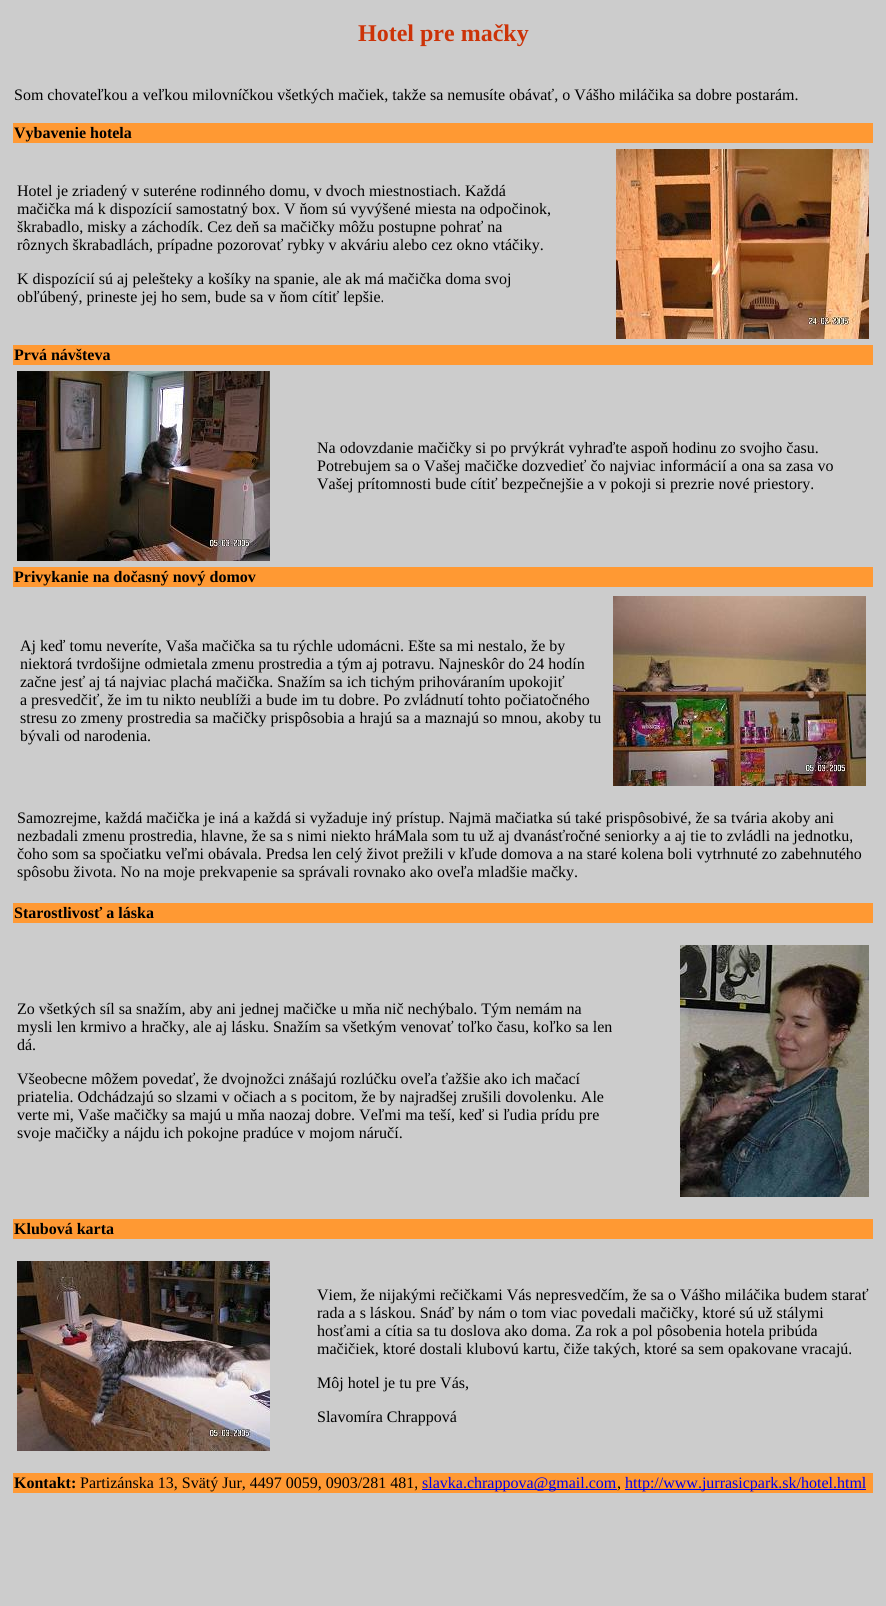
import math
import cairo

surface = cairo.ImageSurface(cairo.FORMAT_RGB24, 886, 1606)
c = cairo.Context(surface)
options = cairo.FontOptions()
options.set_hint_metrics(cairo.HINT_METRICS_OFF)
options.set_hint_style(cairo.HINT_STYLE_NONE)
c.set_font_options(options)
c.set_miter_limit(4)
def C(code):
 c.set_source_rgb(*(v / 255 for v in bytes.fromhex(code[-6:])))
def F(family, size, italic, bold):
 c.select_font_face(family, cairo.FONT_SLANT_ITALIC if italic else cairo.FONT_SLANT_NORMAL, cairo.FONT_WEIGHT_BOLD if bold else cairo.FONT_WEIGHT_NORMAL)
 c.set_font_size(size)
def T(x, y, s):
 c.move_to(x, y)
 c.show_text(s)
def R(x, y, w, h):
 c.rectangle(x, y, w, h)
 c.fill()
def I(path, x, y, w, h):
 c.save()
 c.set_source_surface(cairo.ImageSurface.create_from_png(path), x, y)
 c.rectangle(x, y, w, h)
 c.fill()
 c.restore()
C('cccccc')
c.paint()
F('Liberation Serif',24,0,1)
C('cc3308')
T(358,41,'Hotel pre mačky')
F('Liberation Serif',16,0,0)
C('000000')
T(14,100,'Som chovateľkou a veľkou milovníčkou všetkých mačiek, takže sa nemusíte obávať, o Vášho miláčika sa dobre postarám.')
C('ff9933')
R(13,123,860,20)
F('Liberation Serif',16,0,1)
C('000000')
T(14,138,'Vybavenie hotela')
F('Liberation Serif',16,0,0)
T(17,196,'Hotel je zriadený v suteréne rodinného domu, v dvoch miestnostiach. Každá')
T(17,214,'mačička má k dispozícií samostatný box. V ňom sú vyvýšené miesta na odpočinok,')
T(17,232,'škrabadlo, misky a záchodík. Cez deň sa mačičky môžu postupne pohrať na')
T(17,250,'rôznych škrabadlách, prípadne pozorovať rybky v akváriu alebo cez okno vtáčiky.')
T(17,284,'K dispozícií sú aj pelešteky a košíky na spanie, ale ak má mačička doma svoj')
T(17,302,'obľúbený, prineste jej ho sem, bude sa v ňom cítiť lepšie.')
I('1.png',616,149,253,190)
C('ff9933')
R(13,345,860,20)
F('Liberation Serif',16,0,1)
C('000000')
T(14,360,'Prvá návšteva')
I('2.png',17,371,253,190)
F('Liberation Serif',16,0,0)
T(317,453,'Na odovzdanie mačičky si po prvýkrát vyhraďte aspoň hodinu zo svojho času.')
T(317,471,'Potrebujem sa o Vašej mačičke dozvedieť čo najviac informácií a ona sa zasa vo')
T(317,489,'Vašej prítomnosti bude cítiť bezpečnejšie a v pokoji si prezrie nové priestory.')
C('ff9933')
R(13,567,860,20)
F('Liberation Serif',16,0,1)
C('000000')
T(14,582,'Privykanie na dočasný nový domov')
F('Liberation Serif',16,0,0)
T(20,651,'Aj keď tomu neveríte, Vaša mačička sa tu rýchle udomácni. Ešte sa mi nestalo, že by')
T(20,669,'niektorá tvrdošijne odmietala zmenu prostredia a tým aj potravu. Najneskôr do 24 hodín')
T(20,687,'začne jesť aj tá najviac plachá mačička. Snažím sa ich tichým prihováraním upokojiť')
T(20,705,'a presvedčiť, že im tu nikto neublíži a bude im tu dobre. Po zvládnutí tohto počiatočného')
T(20,723,'stresu zo zmeny prostredia sa mačičky prispôsobia a hrajú sa a maznajú so mnou, akoby tu')
T(20,741,'bývali od narodenia.')
I('3.png',613,596,253,190)
T(17,823,'Samozrejme, každá mačička je iná a každá si vyžaduje iný prístup. Najmä mačiatka sú také prispôsobivé, že sa tvária akoby ani')
T(17,841,'nezbadali zmenu prostredia, hlavne, že sa s nimi niekto hráMala som tu už aj dvanásťročné seniorky a aj tie to zvládli na jednotku,')
T(17,859,'čoho som sa spočiatku veľmi obávala. Predsa len celý život prežili v kľude domova a na staré kolena boli vytrhnuté zo zabehnutého')
T(17,877,'spôsobu života. No na moje prekvapenie sa správali rovnako ako oveľa mladšie mačky.')
C('ff9933')
R(13,903,860,20)
F('Liberation Serif',16,0,1)
C('000000')
T(14,918,'Starostlivosť a láska')
F('Liberation Serif',16,0,0)
T(17,1014,'Zo všetkých síl sa snažím, aby ani jednej mačičke u mňa nič nechýbalo. Tým nemám na')
T(17,1032,'mysli len krmivo a hračky, ale aj lásku. Snažím sa všetkým venovať toľko času, koľko sa len')
T(17,1050,'dá.')
T(17,1084,'Všeobecne môžem povedať, že dvojnožci znášajú rozlúčku oveľa ťažšie ako ich mačací')
T(17,1102,'priatelia. Odchádzajú so slzami v očiach a s pocitom, že by najradšej zrušili dovolenku. Ale')
T(17,1120,'verte mi, Vaše mačičky sa majú u mňa naozaj dobre. Veľmi ma teší, keď si ľudia prídu pre')
T(17,1138,'svoje mačičky a nájdu ich pokojne pradúce v mojom náručí.')
I('4.png',680,945,189,252)
C('ff9933')
R(13,1219,860,20)
F('Liberation Serif',16,0,1)
C('000000')
T(14,1234,'Klubová karta')
I('5.png',17,1261,253,190)
F('Liberation Serif',16,0,0)
T(317,1300,'Viem, že nijakými rečičkami Vás nepresvedčím, že sa o Vášho miláčika budem starať')
T(317,1318,'rada a s láskou. Snáď by nám o tom viac povedali mačičky, ktoré sú už stálymi')
T(317,1336,'hosťami a cítia sa tu doslova ako doma. Za rok a pol pôsobenia hotela pribúda')
T(317,1354,'mačičiek, ktoré dostali klubovú kartu, čiže takých, ktoré sa sem opakovane vracajú.')
T(317,1388,'Môj hotel je tu pre Vás,')
T(317,1422,'Slavomíra Chrappová')
C('ff9933')
R(13,1473,860,20)
F('Liberation Serif',16,0,1)
C('000000')
T(14,1488,'Kontakt:')
F('Liberation Serif',16,0,0)
T(80,1488,'Partizánska 13, Svätý Jur, 4497 0059, 0903/281 481,')
C('0000ee')
R(422,1489,195,1)
T(422,1488,'slavka.chrappova@gmail.com')
C('000000')
T(617,1488,',')
C('0000ee')
R(625,1489,241,1)
T(625,1488,'http://www.jurrasicpark.sk/hotel.html')
surface.write_to_png('o.png')
